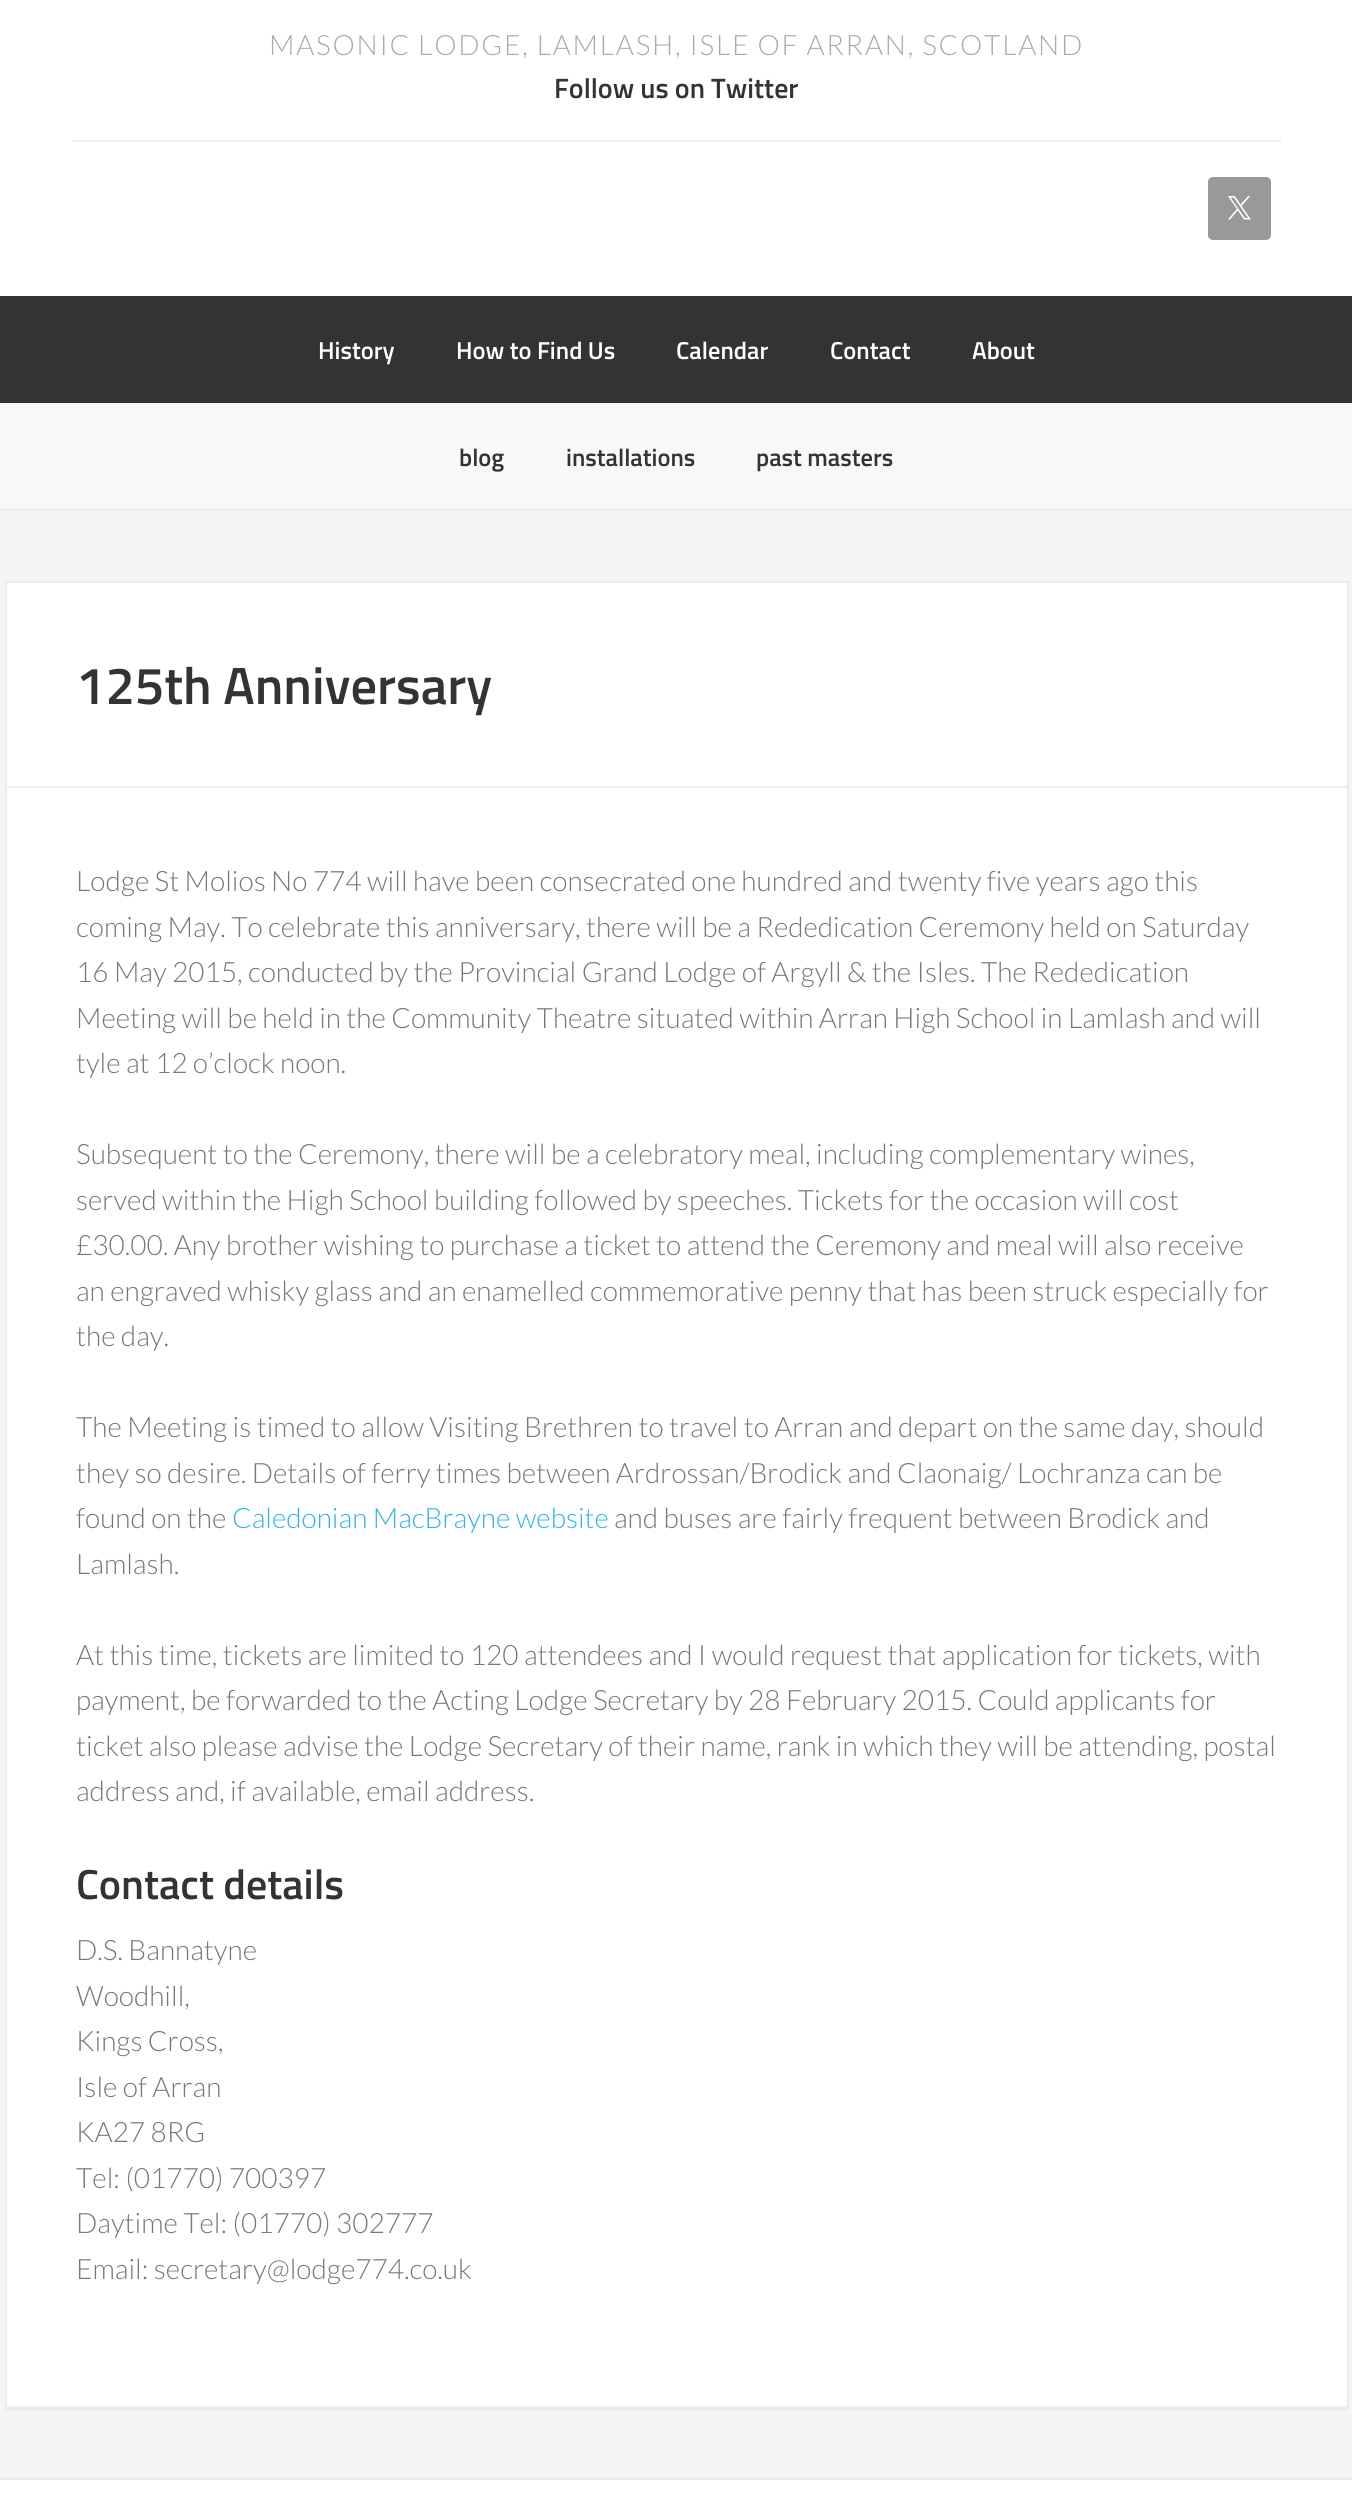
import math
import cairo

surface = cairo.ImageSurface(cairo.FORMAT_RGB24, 1352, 2510)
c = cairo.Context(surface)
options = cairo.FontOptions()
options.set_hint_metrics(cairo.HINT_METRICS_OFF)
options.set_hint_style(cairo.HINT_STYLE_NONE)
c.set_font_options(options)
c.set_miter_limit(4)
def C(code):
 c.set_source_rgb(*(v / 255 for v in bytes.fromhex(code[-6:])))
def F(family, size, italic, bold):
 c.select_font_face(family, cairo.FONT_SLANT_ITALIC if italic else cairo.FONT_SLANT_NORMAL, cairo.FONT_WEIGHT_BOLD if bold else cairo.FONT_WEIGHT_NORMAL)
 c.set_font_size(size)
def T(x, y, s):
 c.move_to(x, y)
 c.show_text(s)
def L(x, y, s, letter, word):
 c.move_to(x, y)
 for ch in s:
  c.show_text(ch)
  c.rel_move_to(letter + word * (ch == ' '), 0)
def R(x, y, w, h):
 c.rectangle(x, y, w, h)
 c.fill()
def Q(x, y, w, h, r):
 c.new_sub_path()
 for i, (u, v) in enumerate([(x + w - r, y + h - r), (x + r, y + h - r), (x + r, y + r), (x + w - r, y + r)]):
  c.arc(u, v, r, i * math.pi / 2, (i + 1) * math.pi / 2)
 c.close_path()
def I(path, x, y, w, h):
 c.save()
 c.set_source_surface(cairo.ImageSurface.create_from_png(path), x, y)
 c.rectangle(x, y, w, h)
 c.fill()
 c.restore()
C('ffffff')
c.paint()
F('Lato Light',28,0,0)
C('aaaaaa')
L(269,55,'MASONIC LODGE, LAMLASH, ISLE OF ARRAN, SCOTLAND',1.75,0)
C('ececec')
R(72,140,1209,2)
F('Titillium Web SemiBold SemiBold',28,0,0)
C('333333')
T(554,98,'Follow us on Twitter')
C('999999')
Q(1208,177,63,63,5)
c.fill()
I('1.png',1228,196,23,24)
C('333333')
R(0,296,1352,107)
F('Titillium Web SemiBold SemiBold',24.5,0,0)
C('ffffff')
T(318,359,'History')
T(456,359,'How to Find Us')
T(676,359,'Calendar')
T(830,359,'Contact')
T(972,359,'About')
C('f8f8f8')
R(0,403,1352,106)
C('333333')
T(459,466,'blog')
T(566,466,'installations')
T(756,466,'past masters')
C('f5f5f5')
R(0,511,1352,1967)
C('ececec')
R(0,509,1352,2)
c.new_path()
c.move_to(5,583)
c.line_to(5,2410)
c.line_to(1349,2410)
c.line_to(1349,2408)
c.line_to(5,2408)
c.close_path()
c.fill()
C('ffffff')
c.rectangle(6,582,1342,1825)
c.fill_preserve()
C('ececec')
c.stroke()
R(7,786,1341,2)
F('Titillium Web SemiBold SemiBold',52.5,0,0)
C('333333')
T(76,704,'125th Anniversary')
F('Lato Light',28,0,0)
C('777777')
T(76,891,'Lodge St Molios No 774 will have been consecrated one hundred and twenty five years ago this')
T(76,937,'coming May. To celebrate this anniversary, there will be a Rededication Ceremony held on Saturday')
T(76,982,'16 May 2015, conducted by the Provincial Grand Lodge of Argyll & the Isles. The Rededication')
T(76,1028,'Meeting will be held in the Community Theatre situated within Arran High School in Lamlash and will')
T(76,1073,'tyle at 12 o’clock noon.')
T(76,1164,'Subsequent to the Ceremony, there will be a celebratory meal, including complementary wines,')
T(76,1210,'served within the High School building followed by speeches. Tickets for the occasion will cost')
T(76,1255,'£30.00. Any brother wishing to purchase a ticket to attend the Ceremony and meal will also receive')
T(76,1301,'an engraved whisky glass and an enamelled commemorative penny that has been struck especially for')
T(76,1346,'the day.')
T(76,1437,'The Meeting is timed to allow Visiting Brethren to travel to Arran and depart on the same day, should')
T(76,1483,'they so desire. Details of ferry times between Ardrossan/Brodick and Claonaig/ Lochranza can be')
T(76,1528,'found on the')
C('31b2ed')
T(232,1528,'Caledonian MacBrayne website')
C('777777')
T(614,1528,'and buses are fairly frequent between Brodick and')
T(76,1574,'Lamlash.')
T(76,1665,'At this time, tickets are limited to 120 attendees and I would request that application for tickets, with')
T(76,1710,'payment, be forwarded to the Acting Lodge Secretary by 28 February 2015. Could applicants for')
T(76,1756,'ticket also please advise the Lodge Secretary of their name, rank in which they will be attending, postal')
T(76,1801,'address and, if available, email address.')
F('Titillium Web SemiBold SemiBold',42,0,0)
C('333333')
T(76,1899,'Contact details')
F('Lato Light',28,0,0)
C('777777')
T(76,1960,'D.S. Bannatyne')
T(76,2006,'Woodhill,')
T(76,2051,'Kings Cross,')
T(76,2097,'Isle of Arran')
T(76,2142,'KA27 8RG')
T(76,2188,'Tel: (01770) 700397')
T(76,2233,'Daytime Tel: (01770) 302777')
T(76,2279,'Email: secretary@lodge774.co.uk')
C('ececec')
R(0,2478,1352,2)
surface.write_to_png('o.png')
